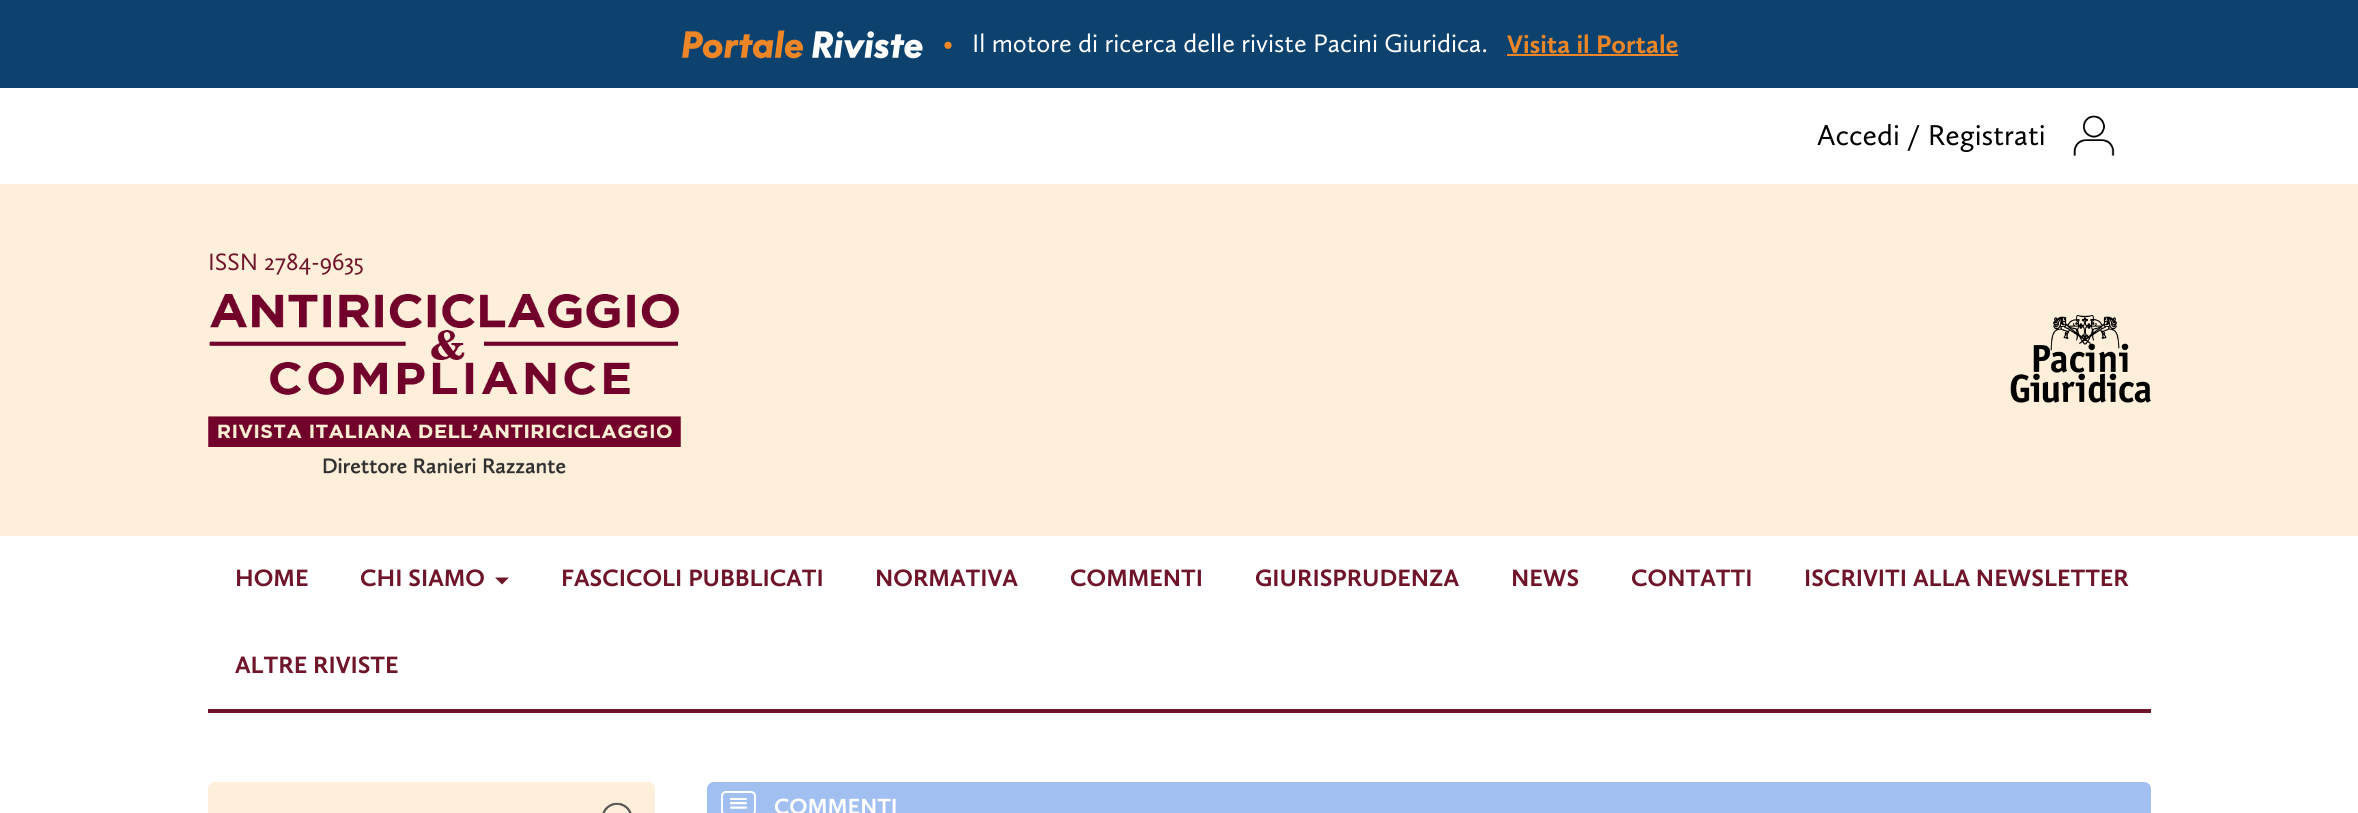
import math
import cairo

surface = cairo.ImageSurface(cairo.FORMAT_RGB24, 2358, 813)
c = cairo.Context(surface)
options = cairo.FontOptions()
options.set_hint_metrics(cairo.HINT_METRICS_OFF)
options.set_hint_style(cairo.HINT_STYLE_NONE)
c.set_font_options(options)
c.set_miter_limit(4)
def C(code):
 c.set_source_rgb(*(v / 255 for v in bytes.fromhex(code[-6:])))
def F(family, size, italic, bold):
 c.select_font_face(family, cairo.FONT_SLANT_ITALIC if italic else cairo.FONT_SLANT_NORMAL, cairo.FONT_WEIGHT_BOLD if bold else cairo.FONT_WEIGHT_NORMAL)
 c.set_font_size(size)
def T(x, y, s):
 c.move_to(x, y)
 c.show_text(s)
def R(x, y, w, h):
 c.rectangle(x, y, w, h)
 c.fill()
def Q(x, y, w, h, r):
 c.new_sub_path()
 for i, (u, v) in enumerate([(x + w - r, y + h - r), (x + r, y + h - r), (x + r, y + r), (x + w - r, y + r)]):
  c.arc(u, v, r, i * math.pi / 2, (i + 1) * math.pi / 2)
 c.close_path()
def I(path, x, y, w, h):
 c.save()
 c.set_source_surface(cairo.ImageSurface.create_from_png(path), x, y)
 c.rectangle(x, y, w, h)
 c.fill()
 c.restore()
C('ffffff')
c.paint()
C('fdefda')
R(0,184,2358,352)
C('0e426e')
R(0,0,2358,88)
I('1.png',682,30,241,29)
F('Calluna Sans',26.25,0,0)
C('ed8627')
T(943,52,'•')
C('ffffff')
T(972,52,'Il motore di ricerca delle riviste Pacini Giuridica.')
F('Calluna Sans',26.25,0,1)
C('ed8627')
T(1507,53,'Visita il Portale')
R(1507,54,171,2)
F('Calluna Sans',29.75,0,0)
C('000000')
T(1817,145,'Accedi / Registrati')
I('2.png',2073,115,42,41)
F('Calluna Sans',24.5,0,0)
C('6f1529')
T(208,270,'ISSN 2784-9635')
I('3.png',208,294,473,180)
I('4.png',2010,315,141,88)
R(208,709,1943,4)
F('Calluna Sans',24.5,0,1)
T(235,586,'HOME')
T(360,586,'CHI SIAMO')
c.new_path()
c.move_to(495,577.5)
c.line_to(509,577.5)
c.line_to(502,584.5)
c.close_path()
c.fill()
T(561,586,'FASCICOLI PUBBLICATI')
T(875,586,'NORMATIVA')
T(1070,586,'COMMENTI')
T(1255,586,'GIURISPRUDENZA')
T(1511,586,'NEWS')
T(1631,586,'CONTATTI')
T(1804,586,'ISCRIVITI ALLA NEWSLETTER')
T(235,673,'ALTRE RIVISTE')
C('fdefda')
Q(208,782,447,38,7)
c.fill()
I('5.png',602,802,30,11)
C('a2bff2')
Q(707,782,1444,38,7)
c.fill()
I('6.png',721,791,35,22)
F('Calluna Sans',22.75,0,1)
C('ffffff')
T(774,814,'COMMENTI')
surface.write_to_png('o.png')
